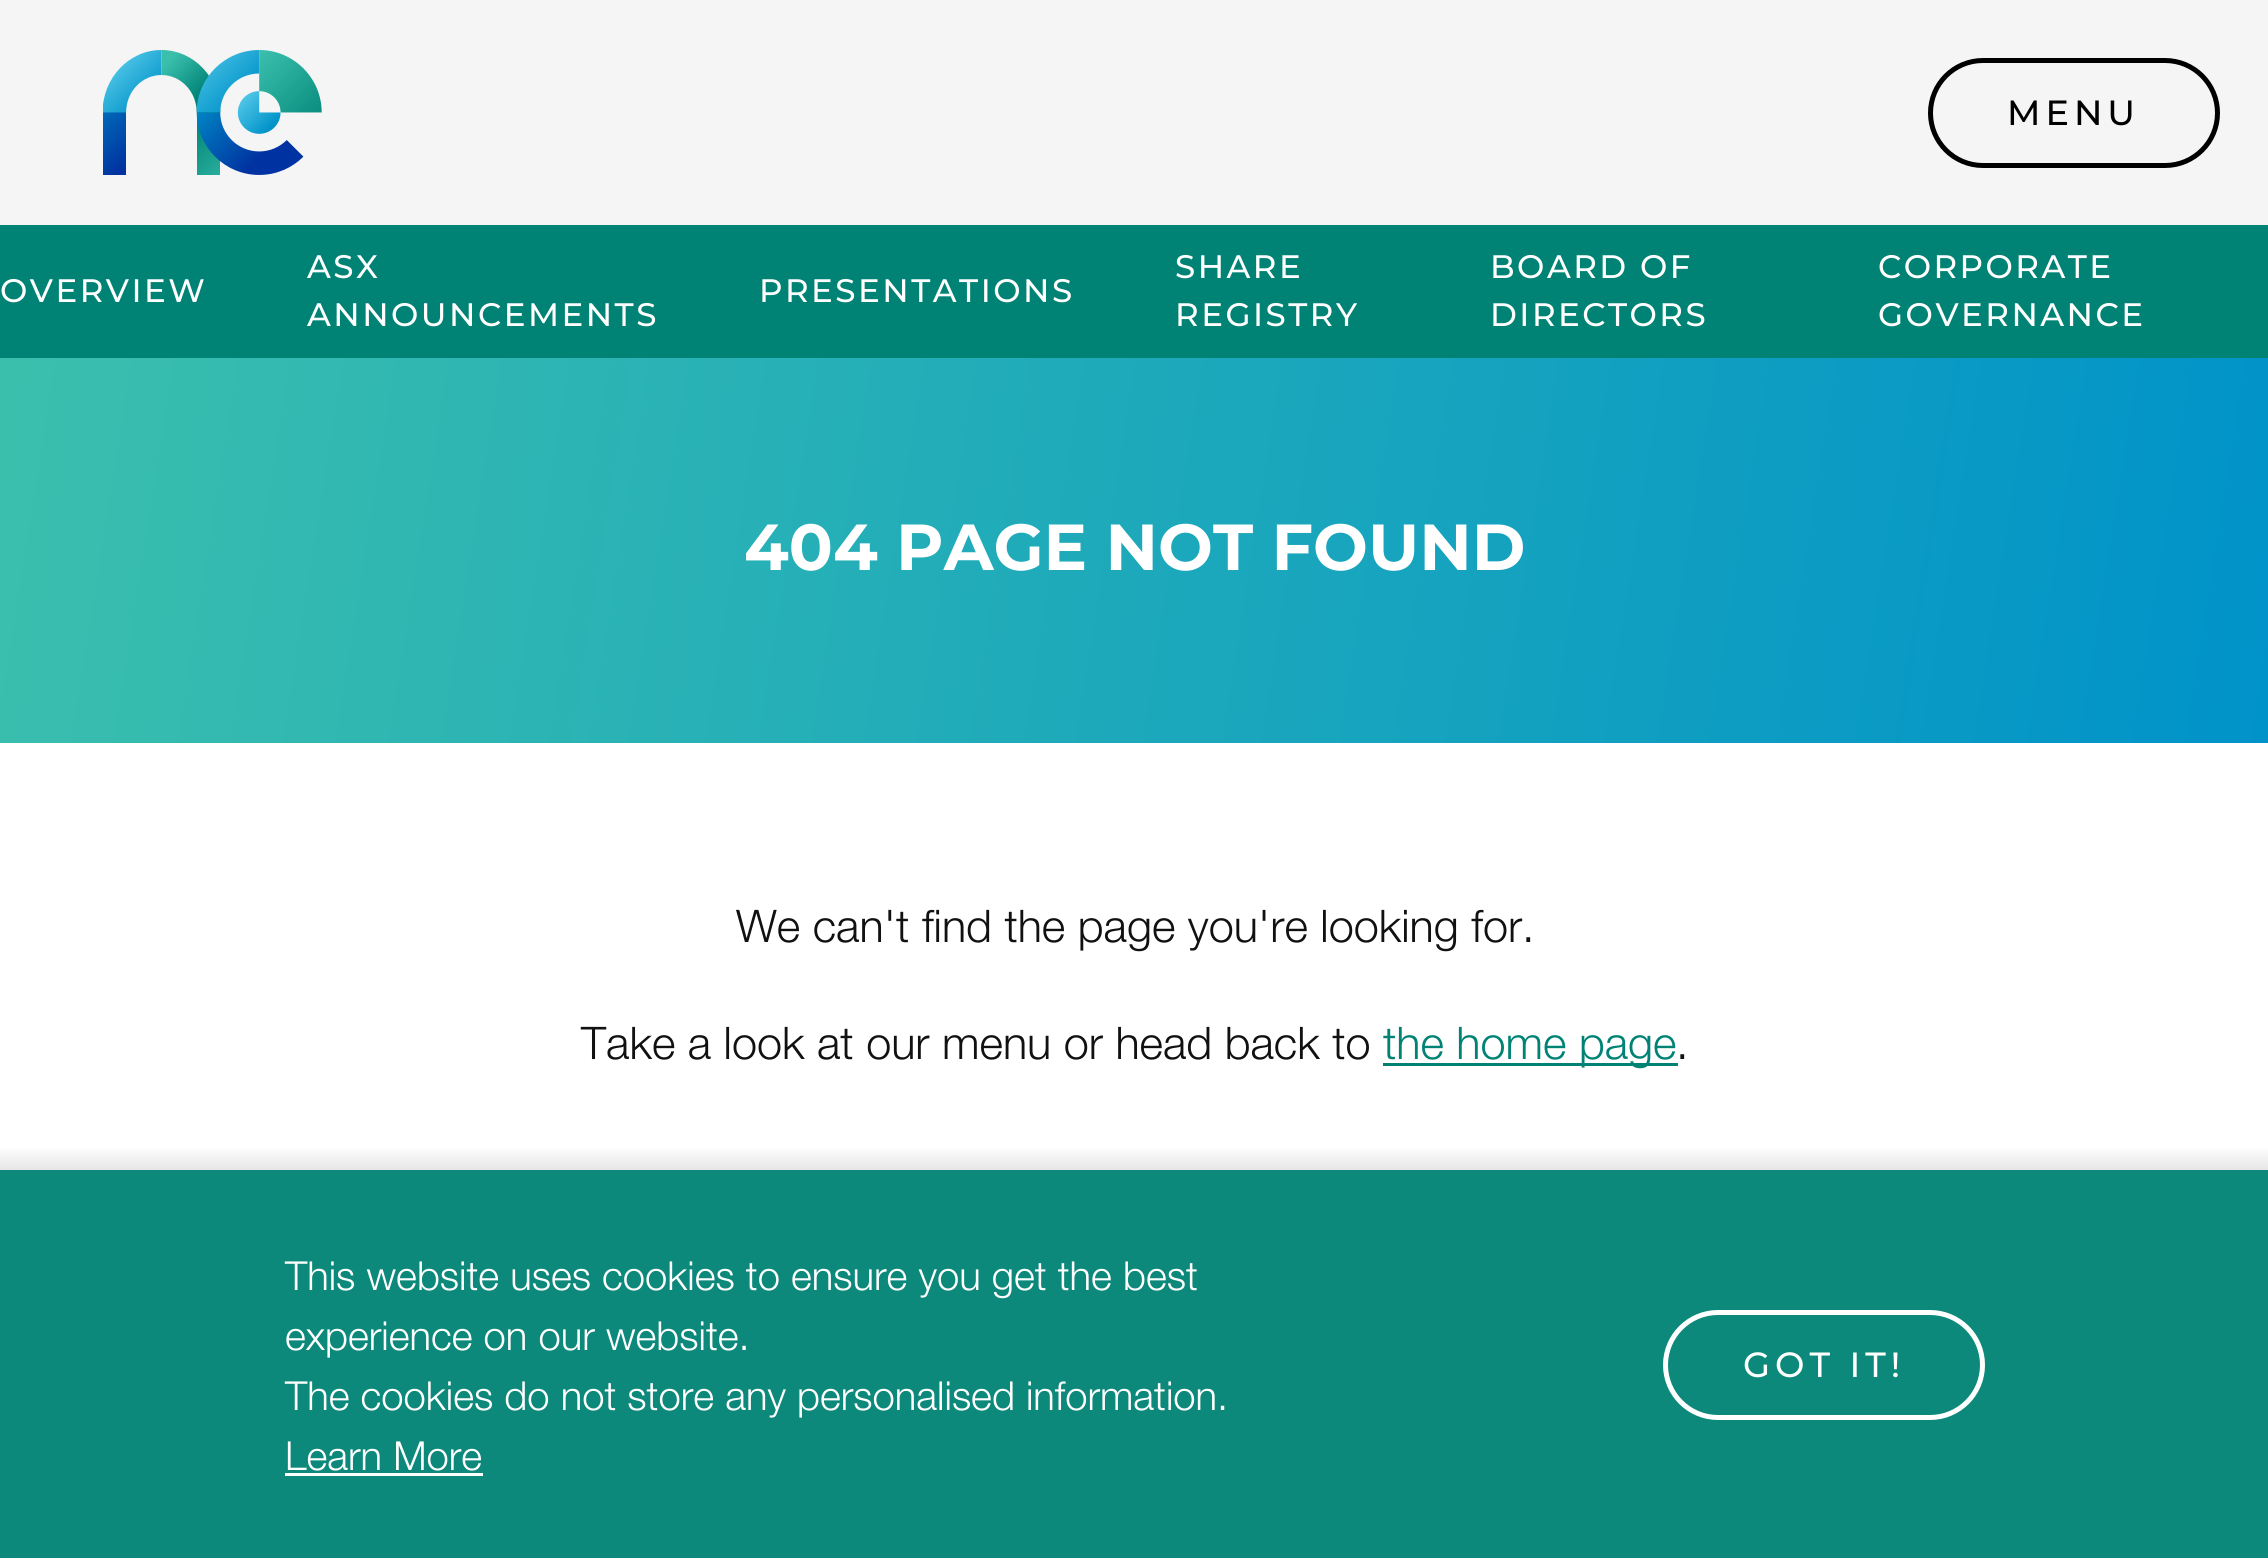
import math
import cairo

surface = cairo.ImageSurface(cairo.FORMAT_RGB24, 2268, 1558)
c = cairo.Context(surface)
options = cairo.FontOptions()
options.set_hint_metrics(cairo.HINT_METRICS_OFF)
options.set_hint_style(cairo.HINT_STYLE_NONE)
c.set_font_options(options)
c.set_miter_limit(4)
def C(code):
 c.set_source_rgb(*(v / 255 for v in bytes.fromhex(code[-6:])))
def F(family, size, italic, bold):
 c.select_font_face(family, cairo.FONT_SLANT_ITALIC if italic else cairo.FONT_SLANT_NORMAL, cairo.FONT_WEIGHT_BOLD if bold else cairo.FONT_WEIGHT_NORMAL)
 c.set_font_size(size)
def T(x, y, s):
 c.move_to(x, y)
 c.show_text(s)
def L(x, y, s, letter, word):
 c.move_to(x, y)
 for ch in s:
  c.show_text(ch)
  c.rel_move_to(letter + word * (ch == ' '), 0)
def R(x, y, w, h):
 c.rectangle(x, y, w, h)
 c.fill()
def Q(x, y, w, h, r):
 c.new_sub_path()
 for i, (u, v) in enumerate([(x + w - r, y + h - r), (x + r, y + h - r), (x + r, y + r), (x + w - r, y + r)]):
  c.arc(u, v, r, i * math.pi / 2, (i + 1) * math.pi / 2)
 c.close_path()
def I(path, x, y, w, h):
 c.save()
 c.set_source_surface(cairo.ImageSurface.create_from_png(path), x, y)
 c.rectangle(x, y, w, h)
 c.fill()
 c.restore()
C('ffffff')
c.paint()
C('0d897c')
R(0,1170,2268,388)
C('f5f5f5')
R(0,0,2268,225)
I('1.png',103,50,219,125)
Q(1930.5,60.5,287,105,52.5)
C('000000')
c.set_line_width(5)
c.stroke()
F('Montserrat Medium',35,0,0)
L(2007,125,'MENU',5,0)
C('008375')
R(0,225,2268,133)
F('Montserrat Medium',32.5,0,0)
C('ffffff')
L(0,302,'OVERVIEW',2.5,0)
L(307,278,'ASX',2.5,0)
L(307,326,'ANNOUNCEMENTS',2.5,0)
L(759,302,'PRESENTATIONS',2.5,0)
L(1175,278,'SHARE',2.5,0)
L(1175,326,'REGISTRY',2.5,0)
L(1490,278,'BOARD OF',2.5,0)
L(1490,326,'DIRECTORS',2.5,0)
L(1878,278,'CORPORATE',2.5,0)
L(1878,326,'GOVERNANCE',2.5,0)
gradient = cairo.LinearGradient(-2,370,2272,730)
gradient.add_color_stop_rgba(0,0.231,0.749,0.678,1)
gradient.add_color_stop_rgba(1,0,0.576,0.788,1)
c.set_source(gradient)
R(0,358,2268,385)
F('Montserrat',65,0,1)
C('ffffff')
T(744,570,'404 PAGE NOT FOUND')
F('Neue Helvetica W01 Light',45,0,0)
C('111111')
T(736,942,'We can\'t find the page you\'re looking for.')
T(581,1059,'Take a look at our menu or head back to')
C('008375')
R(1383,1063,295,3)
T(1383,1059,'the home page')
C('111111')
T(1676,1059,'.')
gradient = cairo.LinearGradient(1135,1145,1135,1170)
gradient.add_color_stop_rgba(0,1,1,1,1)
gradient.add_color_stop_rgba(1,0.902,0.902,0.902,1)
c.set_source(gradient)
R(0,1148,2268,22)
F('Neue Helvetica W01 Light',40,0,0)
C('ffffff')
T(285,1290,'This website uses cookies to ensure you get the best')
T(285,1350,'experience on our website.')
T(285,1410,'The cookies do not store any personalised information.')
T(285,1470,'Learn More')
R(285,1473,198,3)
Q(1665.5,1312.5,317,105,52.5)
c.stroke()
F('Montserrat Medium',35,0,0)
L(1743,1377,'GOT IT!',5,0)
surface.write_to_png('o.png')
